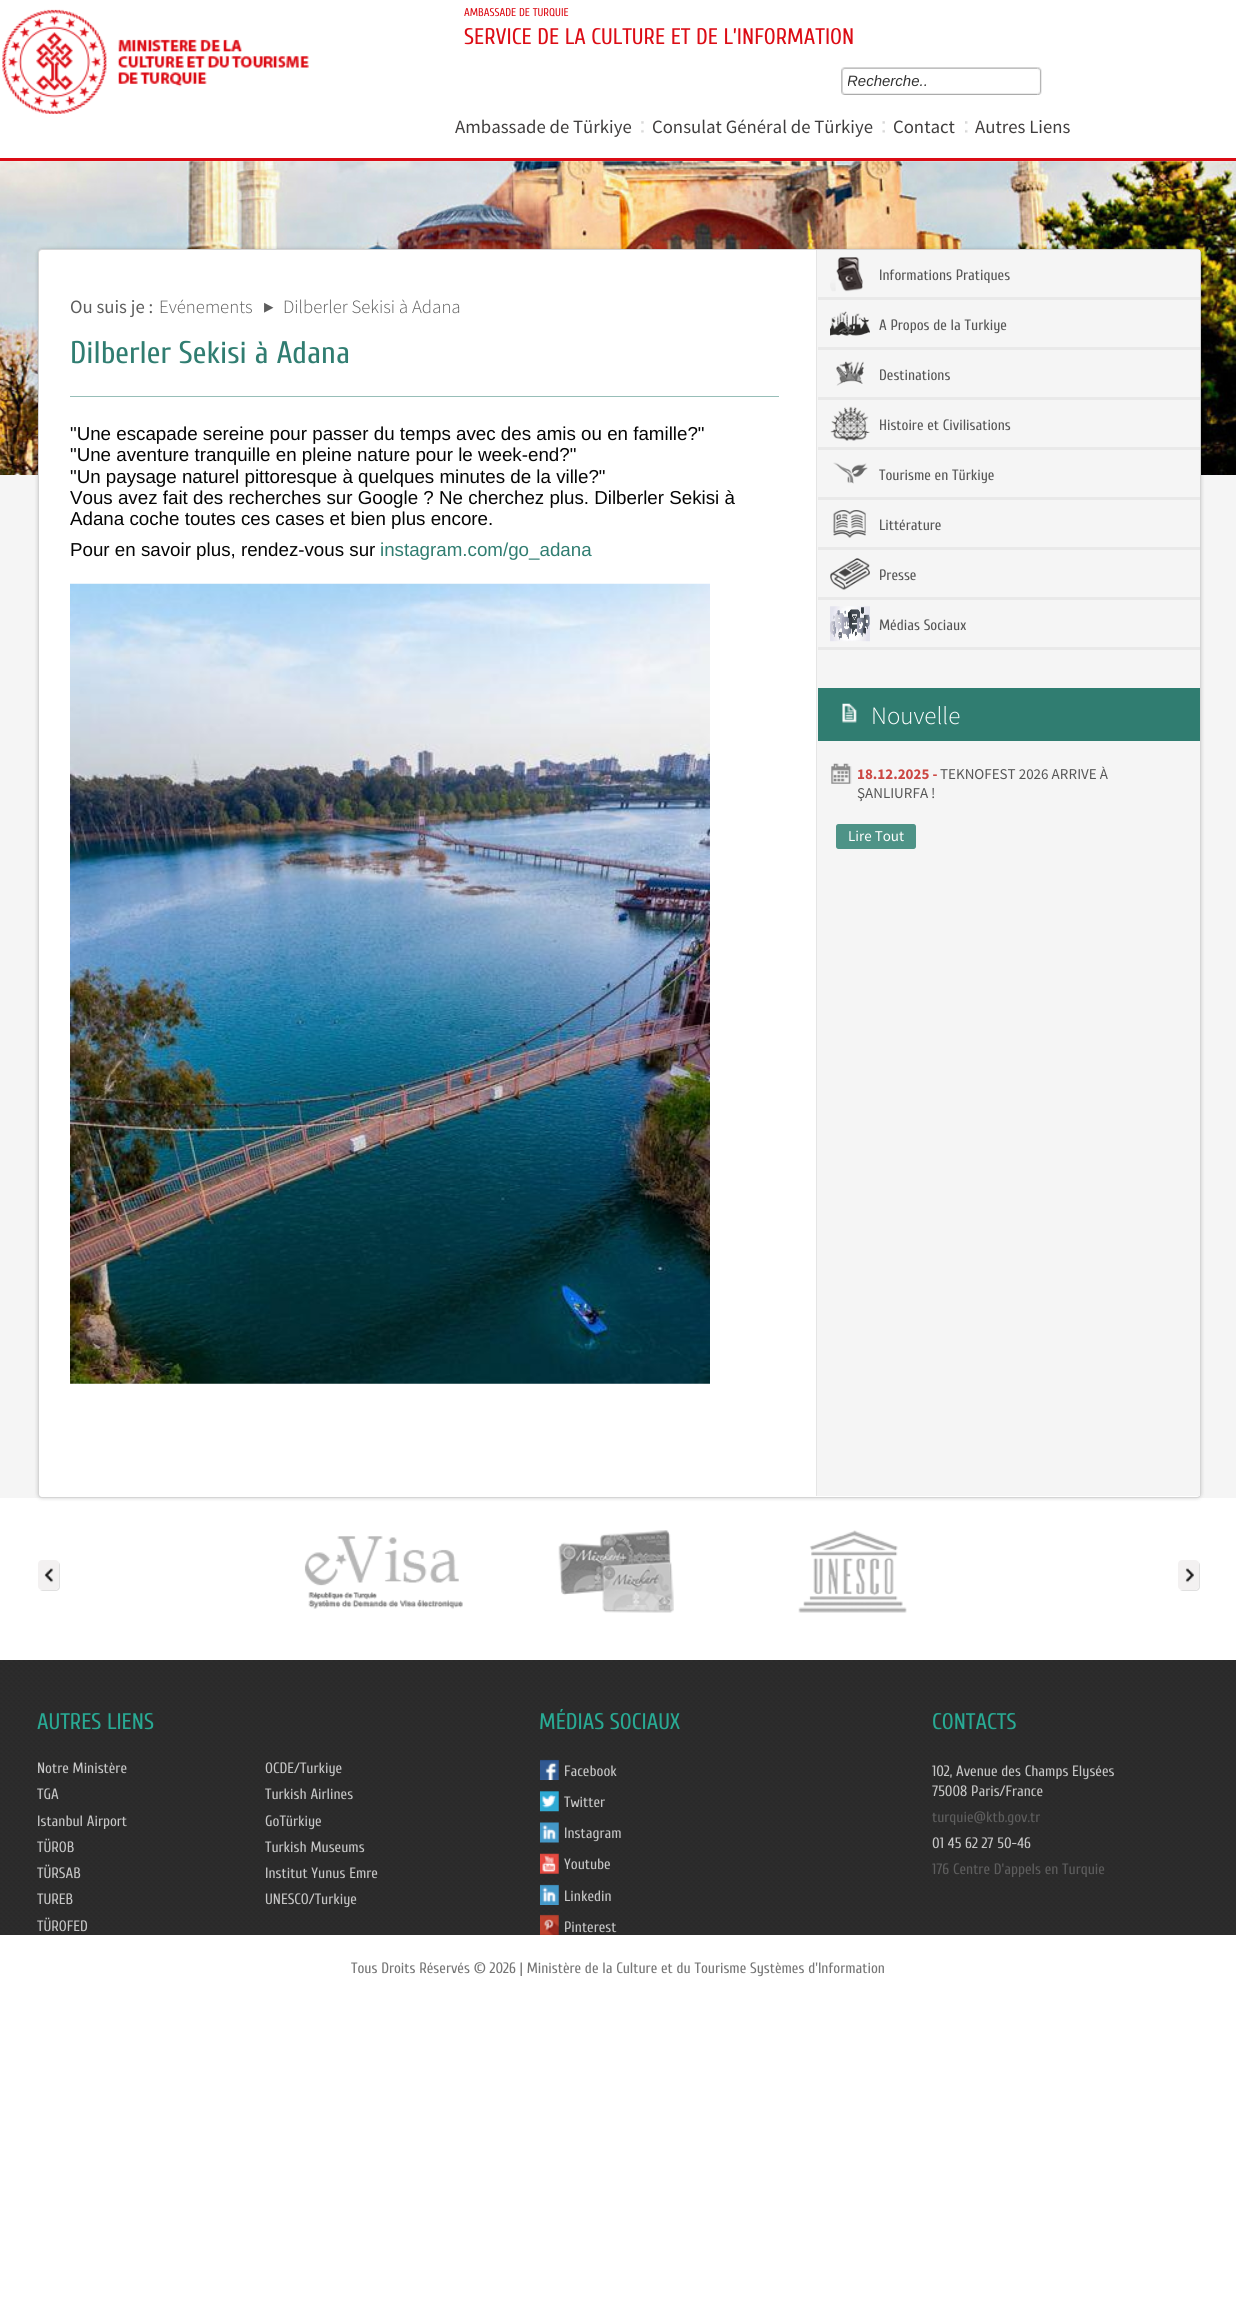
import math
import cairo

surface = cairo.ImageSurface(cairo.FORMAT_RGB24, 1236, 2298)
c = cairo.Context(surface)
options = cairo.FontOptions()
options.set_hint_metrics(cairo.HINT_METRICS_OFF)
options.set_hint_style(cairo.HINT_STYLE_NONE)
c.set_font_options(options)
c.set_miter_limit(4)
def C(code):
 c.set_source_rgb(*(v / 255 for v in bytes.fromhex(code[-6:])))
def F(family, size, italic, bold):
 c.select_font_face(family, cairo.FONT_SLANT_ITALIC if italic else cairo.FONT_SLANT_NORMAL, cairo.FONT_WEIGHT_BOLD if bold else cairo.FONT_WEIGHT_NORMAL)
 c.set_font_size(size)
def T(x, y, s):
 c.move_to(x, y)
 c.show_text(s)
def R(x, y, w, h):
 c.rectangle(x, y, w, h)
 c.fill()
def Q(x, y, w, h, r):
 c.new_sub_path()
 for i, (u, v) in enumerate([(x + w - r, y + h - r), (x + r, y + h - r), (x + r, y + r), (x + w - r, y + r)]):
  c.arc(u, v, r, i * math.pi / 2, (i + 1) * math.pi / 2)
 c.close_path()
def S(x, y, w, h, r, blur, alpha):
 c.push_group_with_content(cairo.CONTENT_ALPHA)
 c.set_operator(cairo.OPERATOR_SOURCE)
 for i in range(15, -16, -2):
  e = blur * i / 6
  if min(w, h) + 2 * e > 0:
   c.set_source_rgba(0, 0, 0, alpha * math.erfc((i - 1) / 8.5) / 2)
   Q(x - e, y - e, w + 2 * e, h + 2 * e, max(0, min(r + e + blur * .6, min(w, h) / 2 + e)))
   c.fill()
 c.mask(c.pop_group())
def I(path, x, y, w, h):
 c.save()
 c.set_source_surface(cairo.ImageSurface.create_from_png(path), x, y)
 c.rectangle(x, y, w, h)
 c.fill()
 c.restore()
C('ffffff')
c.paint()
C('dc0c15')
R(0,158,1236,3)
I('1.png',2,9,307,105)
F('Cuprum',11.25,0,0)
T(464,16,'AMBASSADE DE TURQUIE')
F('Cuprum',22.5,0,0)
T(464,44,'SERVICE DE LA CULTURE ET DE L’INFORMATION')
I('2.png',841,67,197,28)
c.save()
c.rectangle(848,71,185,20)
c.clip()
F('Liberation Sans',15,1,0)
C('333333')
T(847,86,'Recherche..')
c.restore()
I('3.png',1037,67,5,28)
F('Source Sans Pro',18.75,0,0)
C('403e3e')
T(455,133,'Ambassade de Türkiye')
I('4.png',641,121,3,12)
T(652,133,'Consulat Général de Türkiye')
I('5.png',882,121,3,12)
T(893,133,'Contact')
I('6.png',965,121,3,12)
T(975,133,'Autres Liens')
C('f5f5f5')
R(0,161,1236,1337)
I('7.png',0,161,1236,314)
C('000000')
S(38,249,1163,1249,4,2,.2)
C('ffffff')
Q(38.5,249.5,1162,1248,3.5)
c.fill_preserve()
C('d5d5d5')
c.set_line_width(1)
c.stroke()
C('5d5d5d')
T(70,313,'Ou suis je :')
F('Source Sans Pro Light',18.75,0,0)
T(159,313,'Evénements')
F('Source Sans Pro',18.75,0,0)
T(263,313,'▶')
F('Source Sans Pro Light',18.75,0,0)
T(283,313,'Dilberler Sekisi à Adana')
C('97beb8')
R(70,396,709,1)
F('Cuprum',31.25,0,0)
C('307d71')
T(70,363,'Dilberler Sekisi à Adana')
F('Liberation Sans',18.75,0,0)
C('050505')
T(70,440,'"Une escapade sereine pour passer du temps avec des amis ou en famille?"')
T(70,461,'"Une aventure tranquille en pleine nature pour le week-end?"')
T(70,483,'"Un paysage naturel pittoresque à quelques minutes de la ville?"')
T(70,504,'Vous avez fait des recherches sur Google ? Ne cherchez plus. Dilberler Sekisi à')
T(70,525,'Adana coche toutes ces cases et bien plus encore.')
T(70,556,'Pour en savoir plus, rendez-vous sur')
C('307d71')
T(380,556,'instagram.com/go_adana')
I('8.png',70,583,640,801)
C('f5f5f5')
R(817,250,383,1246)
C('e5e5e5')
R(816,250,1,1246)
C('e9e9e9')
R(818,297,382,3)
I('9.png',830,257,33,35)
F('Cuprum',15,0,0)
C('565656')
T(879,280,'Informations Pratiques')
C('e9e9e9')
R(818,347,382,3)
I('10.png',830,311,40,25)
C('565656')
T(879,330,'A Propos de la Turkiye')
C('e9e9e9')
R(818,397,382,3)
I('11.png',836,361,28,25)
C('565656')
T(879,380,'Destinations')
C('e9e9e9')
R(818,447,382,3)
I('12.png',830,406,40,35)
C('565656')
T(879,430,'Histoire et Civilisations')
C('e9e9e9')
R(818,497,382,3)
I('13.png',833,462,35,22)
C('565656')
T(879,480,'Tourisme en Türkiye')
C('e9e9e9')
R(818,547,382,3)
I('14.png',833,510,33,28)
C('565656')
T(879,530,'Littérature')
C('e9e9e9')
R(818,597,382,3)
I('15.png',830,558,40,32)
C('565656')
T(879,580,'Presse')
C('e9e9e9')
R(818,647,382,3)
I('16.png',830,606,40,36)
C('565656')
T(879,630,'Médias Sociaux')
C('307d71')
R(818,688,382,53)
I('17.png',842,703,15,20)
F('Source Sans Pro Light',25,0,0)
C('ffffff')
T(871,724,'Nouvelle')
I('18.png',831,763,21,21)
F('Source Sans Pro',15,0,1)
C('cc4742')
T(857,779,'18.12.2025 -')
F('Source Sans Pro',15,0,0)
C('565656')
T(940,779,'TEKNOFEST 2026 ARRIVE À')
T(857,798,'ŞANLIURFA !')
C('4e9387')
Q(836,824,80,25,2.5)
c.fill()
C('ffffff')
T(848,841,'Lire Tout')
I('19.png',304,1536,159,73)
I('20.png',558,1530,116,83)
I('21.png',798,1530,109,83)
C('e0e0e0')
c.new_path()
c.move_to(40,1590)
c.curve_to(41,1590.5,42,1591,43,1591)
c.line_to(56,1591)
c.curve_to(58,1591,60,1589,60,1587)
c.line_to(60,1565)
c.curve_to(60,1563.5,59,1562.5,58,1561.5)
c.curve_to(59,1563,59,1566,59,1567.5)
c.line_to(59,1582.5)
c.curve_to(59,1585,59.5,1589,56,1590)
c.close_path()
c.fill()
C('f3f1f1')
Q(38,1560,21,30,4)
c.fill()
I('22.png',44,1568,10,15)
C('e0e0e0')
c.new_path()
c.move_to(1180,1590)
c.curve_to(1181,1590.5,1182,1591,1183,1591)
c.line_to(1196,1591)
c.curve_to(1198,1591,1200,1589,1200,1587)
c.line_to(1200,1565)
c.curve_to(1200,1563.5,1199,1562.5,1198,1561.5)
c.curve_to(1199,1563,1199,1566,1199,1567.5)
c.line_to(1199,1582.5)
c.curve_to(1199,1585,1199.5,1589,1196,1590)
c.close_path()
c.fill()
C('f3f1f1')
Q(1178,1560,21,30,4)
c.fill()
I('23.png',1185,1568,9,15)
I('24.png',0,1660,1236,275)
F('Cuprum',22.5,0,0)
C('28aa94')
T(37,1729,'AUTRES LIENS')
F('Cuprum',15,0,0)
C('c6c6c6')
T(37,1773,'Notre Ministère')
T(265,1773,'OCDE/Turkiye')
T(37,1799,'TGA')
T(265,1799,'Turkish Airlines')
T(37,1826,'Istanbul Airport')
T(265,1826,'GoTürkiye')
T(37,1852,'TÜROB')
T(265,1852,'Turkish Museums')
T(37,1878,'TÜRSAB')
T(265,1878,'Institut Yunus Emre')
T(37,1904,'TUREB')
T(265,1904,'UNESCO/Turkiye')
T(37,1931,'TÜROFED')
F('Cuprum',22.5,0,0)
C('28aa94')
T(539,1729,'MÉDIAS SOCIAUX')
I('25.png',540,1759,19,21)
F('Cuprum',15,0,0)
C('c6c6c6')
T(564,1776,'Facebook')
I('26.png',540,1791,19,21)
T(564,1807,'Twitter')
I('27.png',540,1822,19,21)
T(564,1838,'Instagram')
I('28.png',540,1853,19,21)
T(564,1869,'Youtube')
I('29.png',540,1884,19,21)
T(564,1901,'Linkedin')
I('30.png',540,1914,19,21)
T(564,1932,'Pinterest')
F('Cuprum',22.5,0,0)
C('28aa94')
T(932,1729,'CONTACTS')
F('Cuprum',15,0,0)
C('c6c6c6')
T(932,1776,'102, Avenue des Champs Elysées')
T(932,1796,'75008 Paris/France')
C('5d5d5d')
T(932,1822,'turquie@ktb.gov.tr')
C('c6c6c6')
T(932,1848,'01 45 62 27 50-46')
C('5d5d5d')
T(932,1874,'176 Centre D\'appels en Turquie')
C('757575')
T(351,1973,'Tous Droits Réservés © 2026 | Ministère de la Culture et du Tourisme Systèmes d\'Information')
surface.write_to_png('o.png')
